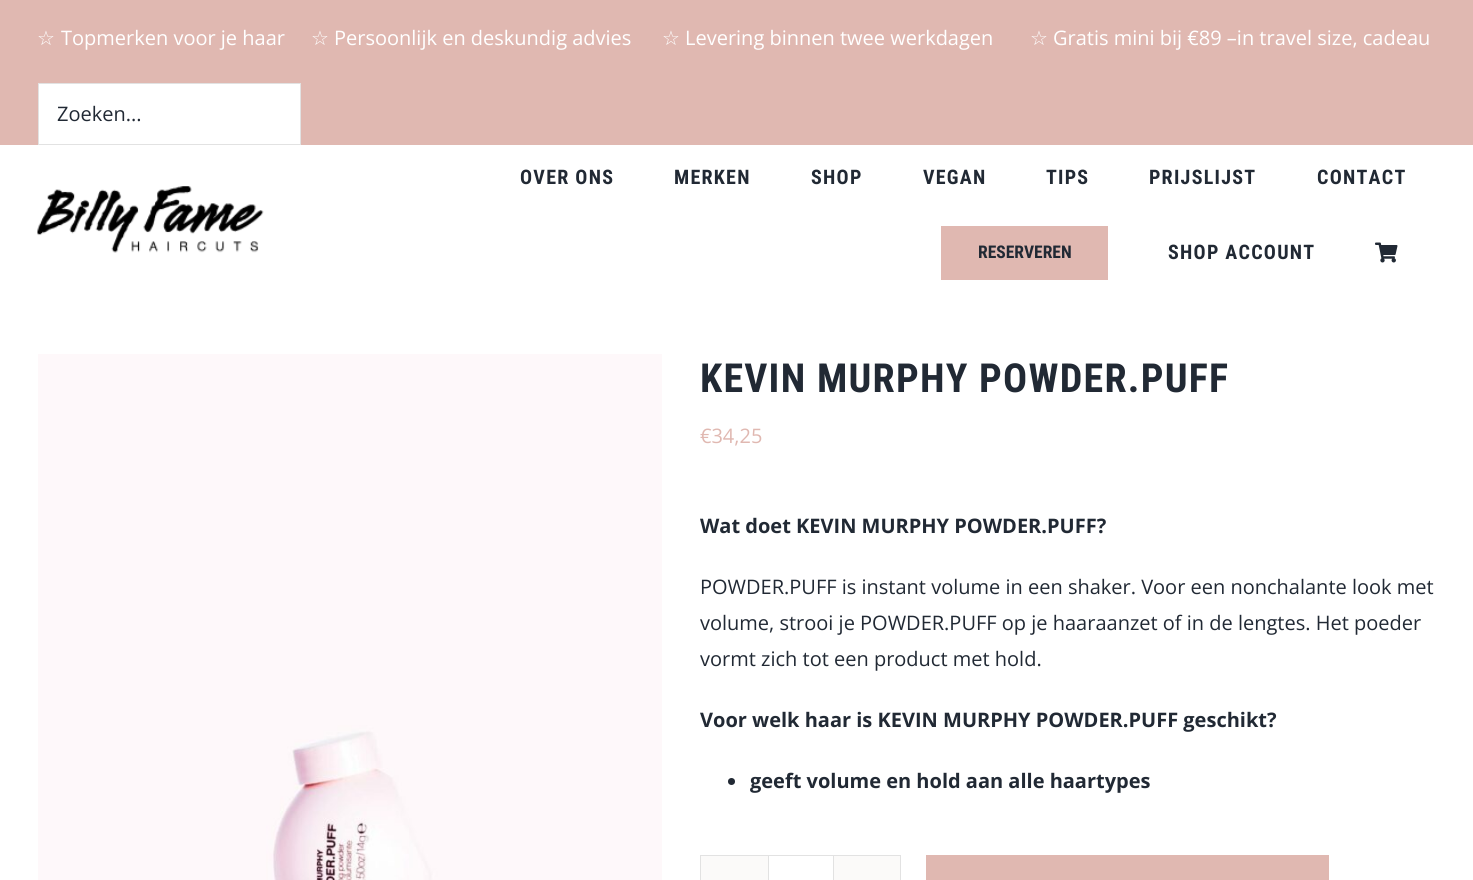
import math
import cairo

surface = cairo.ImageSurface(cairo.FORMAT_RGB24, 1473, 880)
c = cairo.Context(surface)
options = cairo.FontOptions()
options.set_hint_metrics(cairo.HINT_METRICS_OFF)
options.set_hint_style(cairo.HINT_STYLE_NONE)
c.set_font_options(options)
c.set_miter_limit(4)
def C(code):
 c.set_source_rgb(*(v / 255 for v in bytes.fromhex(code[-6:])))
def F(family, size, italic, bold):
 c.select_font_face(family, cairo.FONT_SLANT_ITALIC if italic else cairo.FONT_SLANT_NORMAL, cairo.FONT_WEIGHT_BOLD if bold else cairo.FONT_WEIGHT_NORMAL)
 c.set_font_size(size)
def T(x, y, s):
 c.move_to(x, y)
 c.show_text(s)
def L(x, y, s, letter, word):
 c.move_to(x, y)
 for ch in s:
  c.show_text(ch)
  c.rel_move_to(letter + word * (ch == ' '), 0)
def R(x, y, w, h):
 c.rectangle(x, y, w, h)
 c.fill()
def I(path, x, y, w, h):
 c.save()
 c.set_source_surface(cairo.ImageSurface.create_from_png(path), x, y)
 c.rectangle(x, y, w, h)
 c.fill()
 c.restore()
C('ffffff')
c.paint()
C('e0b8b1')
R(0,0,1473,145)
F('DejaVu Sans',20,0,0)
C('ffffff')
T(37,45,'☆')
F('Open Sans',20,0,0)
T(61,45,'Topmerken voor je haar')
F('DejaVu Sans',20,0,0)
T(311,45,'☆')
F('Open Sans',20,0,0)
T(334,45,'Persoonlijk en deskundig advies')
F('DejaVu Sans',20,0,0)
T(662,45,'☆')
F('Open Sans',20,0,0)
T(685,45,'Levering binnen twee werkdagen')
F('DejaVu Sans',20,0,0)
T(1030,45,'☆')
F('Open Sans',20,0,0)
T(1053,45,'Gratis mini bij €89 –in travel size, cadeau')
c.rectangle(38.5,83.5,262,61)
c.fill_preserve()
C('e2e2e2')
c.set_line_width(1)
c.stroke()
C('212934')
T(57,121,'Zoeken...')
I('1.png',37,186,227,67)
F('Roboto Condensed',20,0,1)
L(520,184,'OVER ONS',1.25,0)
L(674,184,'MERKEN',1.25,0)
L(811,184,'SHOP',1.25,0)
L(923,184,'VEGAN',1.25,0)
L(1046,184,'TIPS',1.25,0)
L(1149,184,'PRIJSLIJST',1.25,0)
L(1317,184,'CONTACT',1.25,0)
C('e0b8b1')
R(941,226,167,54)
F('Roboto Condensed',17.5,0,1)
C('212934')
T(978,258,'RESERVEREN')
F('Roboto Condensed',20,0,1)
L(1168,259,'SHOP ACCOUNT',1.25,0)
I('2.png',1375,242,23,21)
I('3.png',38,354,624,526)
F('Roboto Condensed',40,0,1)
L(700,392,'KEVIN MURPHY POWDER.PUFF',1.25,0)
F('Open Sans',20,0,0)
C('e0b8b1')
T(700,443,'€34,25')
F('Open Sans',20,0,1)
C('212934')
T(700,533,'Wat doet KEVIN MURPHY POWDER.PUFF?')
F('Open Sans',20,0,0)
T(700,594,'POWDER.PUFF is instant volume in een shaker. Voor een nonchalante look met')
T(700,630,'volume, strooi je POWDER.PUFF op je haaraanzet of in de lengtes. Het poeder')
T(700,666,'vormt zich tot een product met hold.')
F('Open Sans',20,0,1)
T(700,727,'Voor welk haar is KEVIN MURPHY POWDER.PUFF geschikt?')
c.new_path()
c.arc(731.5,781.5,3.5,0,2 * math.pi)
c.fill()
T(750,788,'geeft volume en hold aan alle haartypes')
c.rectangle(700.5,855.5,200,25)
C('e2e2e2')
c.stroke()
C('fbfaf9')
R(701,856,67,24)
C('e2e2e2')
R(833,856,1,24)
R(768,856,1,24)
C('fbfaf9')
R(834,856,66,24)
C('e0b8b1')
R(926,855,403,25)
surface.write_to_png('o.png')
